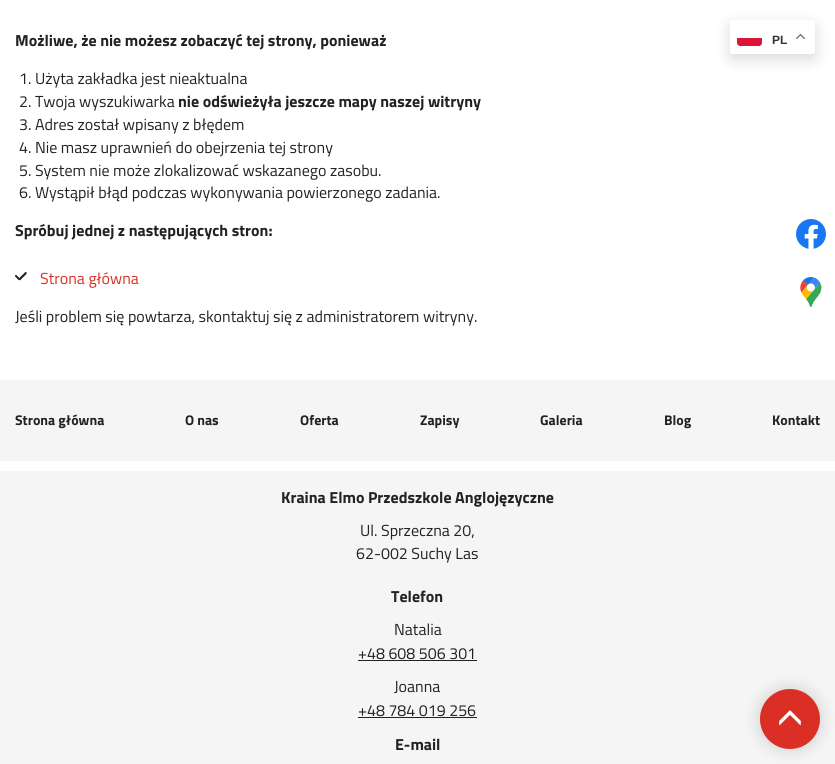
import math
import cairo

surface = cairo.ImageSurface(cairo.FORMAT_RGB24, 835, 764)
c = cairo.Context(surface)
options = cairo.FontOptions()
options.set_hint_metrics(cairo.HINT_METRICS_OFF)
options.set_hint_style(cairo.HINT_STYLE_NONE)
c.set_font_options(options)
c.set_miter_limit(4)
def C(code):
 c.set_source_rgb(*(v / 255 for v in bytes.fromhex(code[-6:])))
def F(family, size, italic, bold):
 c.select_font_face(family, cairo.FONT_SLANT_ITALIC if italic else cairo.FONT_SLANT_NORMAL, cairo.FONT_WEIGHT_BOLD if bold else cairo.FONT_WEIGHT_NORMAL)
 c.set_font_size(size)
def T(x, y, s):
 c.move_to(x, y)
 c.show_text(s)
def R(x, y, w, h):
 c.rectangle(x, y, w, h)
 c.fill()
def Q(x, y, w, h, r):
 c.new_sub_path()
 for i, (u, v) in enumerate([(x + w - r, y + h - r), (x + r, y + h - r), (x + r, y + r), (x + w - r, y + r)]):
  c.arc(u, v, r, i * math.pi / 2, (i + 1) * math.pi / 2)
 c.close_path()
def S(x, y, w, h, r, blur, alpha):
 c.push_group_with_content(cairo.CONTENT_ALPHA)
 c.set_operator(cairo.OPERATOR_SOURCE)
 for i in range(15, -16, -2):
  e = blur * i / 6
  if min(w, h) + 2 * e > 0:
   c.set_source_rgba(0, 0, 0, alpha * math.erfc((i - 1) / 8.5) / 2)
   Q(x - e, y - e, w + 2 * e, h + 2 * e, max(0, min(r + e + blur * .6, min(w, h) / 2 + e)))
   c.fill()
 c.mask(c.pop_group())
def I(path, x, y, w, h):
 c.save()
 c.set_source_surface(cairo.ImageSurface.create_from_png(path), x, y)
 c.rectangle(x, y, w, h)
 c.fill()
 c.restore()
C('ffffff')
c.paint()
F('Cairo',16,0,1)
C('222222')
T(15,46,'Możliwe, że nie możesz zobaczyć tej strony, ponieważ')
F('Cairo',16,0,0)
T(19,84,'1. Użyta zakładka jest nieaktualna')
T(19,107,'2. Twoja wyszukiwarka')
F('Cairo',16,0,1)
T(178,107,'nie odświeżyła jeszcze mapy naszej witryny')
F('Cairo',16,0,0)
T(19,130,'3. Adres został wpisany z błędem')
T(19,153,'4. Nie masz uprawnień do obejrzenia tej strony')
T(19,176,'5. System nie może zlokalizować wskazanego zasobu.')
T(19,198,'6. Wystąpił błąd podczas wykonywania powierzonego zadania.')
F('Cairo',16,0,1)
T(15,236,'Spróbuj jednej z następujących stron:')
I('1.png',15,272,12,9)
F('Cairo',16,0,0)
C('db2f25')
T(40,284,'Strona główna')
C('222222')
T(15,322,'Jeśli problem się powtarza, skontaktuj się z administratorem witryny.')
C('000000')
S(730,25,85,34,2,7.5,.15)
C('ffffff')
Q(730,20,85,34,2)
c.fill()
C('dc143c')
c.new_path()
c.move_to(737,38)
c.line_to(762,38)
c.line_to(762,43)
c.curve_to(762,44.5,760.5,46,759,46)
c.line_to(740,46)
c.curve_to(738.5,46,737,44.5,737,43)
c.close_path()
c.fill()
F('Liberation Sans',12,0,1)
C('333333')
T(772,44,'PL')
I('2.png',796,33,9,7)
I('3.png',796,219,30,30)
I('4.png',800,277,22,30)
C('f5f5f5')
R(0,380,835,81)
F('Cairo',14,0,1)
C('222222')
T(15,425,'Strona główna')
T(185,425,'O nas')
T(300,425,'Oferta')
T(420,425,'Zapisy')
T(540,425,'Galeria')
T(664,425,'Blog')
T(772,425,'Kontakt')
C('f5f5f5')
R(0,471,835,293)
F('Cairo',16,0,1)
C('222222')
T(281,503,'Kraina Elmo Przedszkole Anglojęzyczne')
F('Cairo',16,0,0)
T(360,536,'Ul. Sprzeczna 20,')
T(356,559,'62-002 Suchy Las')
F('Cairo',16,0,1)
T(391,602,'Telefon')
F('Cairo',16,0,0)
T(394,635,'Natalia')
T(358,659,'+48 608 506 301')
R(358,660,119,1)
T(394,692,'Joanna')
T(358,716,'+48 784 019 256')
R(358,717,119,1)
F('Cairo',16,0,1)
T(395,750,'E-mail')
C('000000')
S(759,688,62,62,31,8,.15)
C('db2f25')
c.arc(790,719,30,0,2 * math.pi)
c.fill()
I('5.png',779,710,22,16)
surface.write_to_png('o.png')
